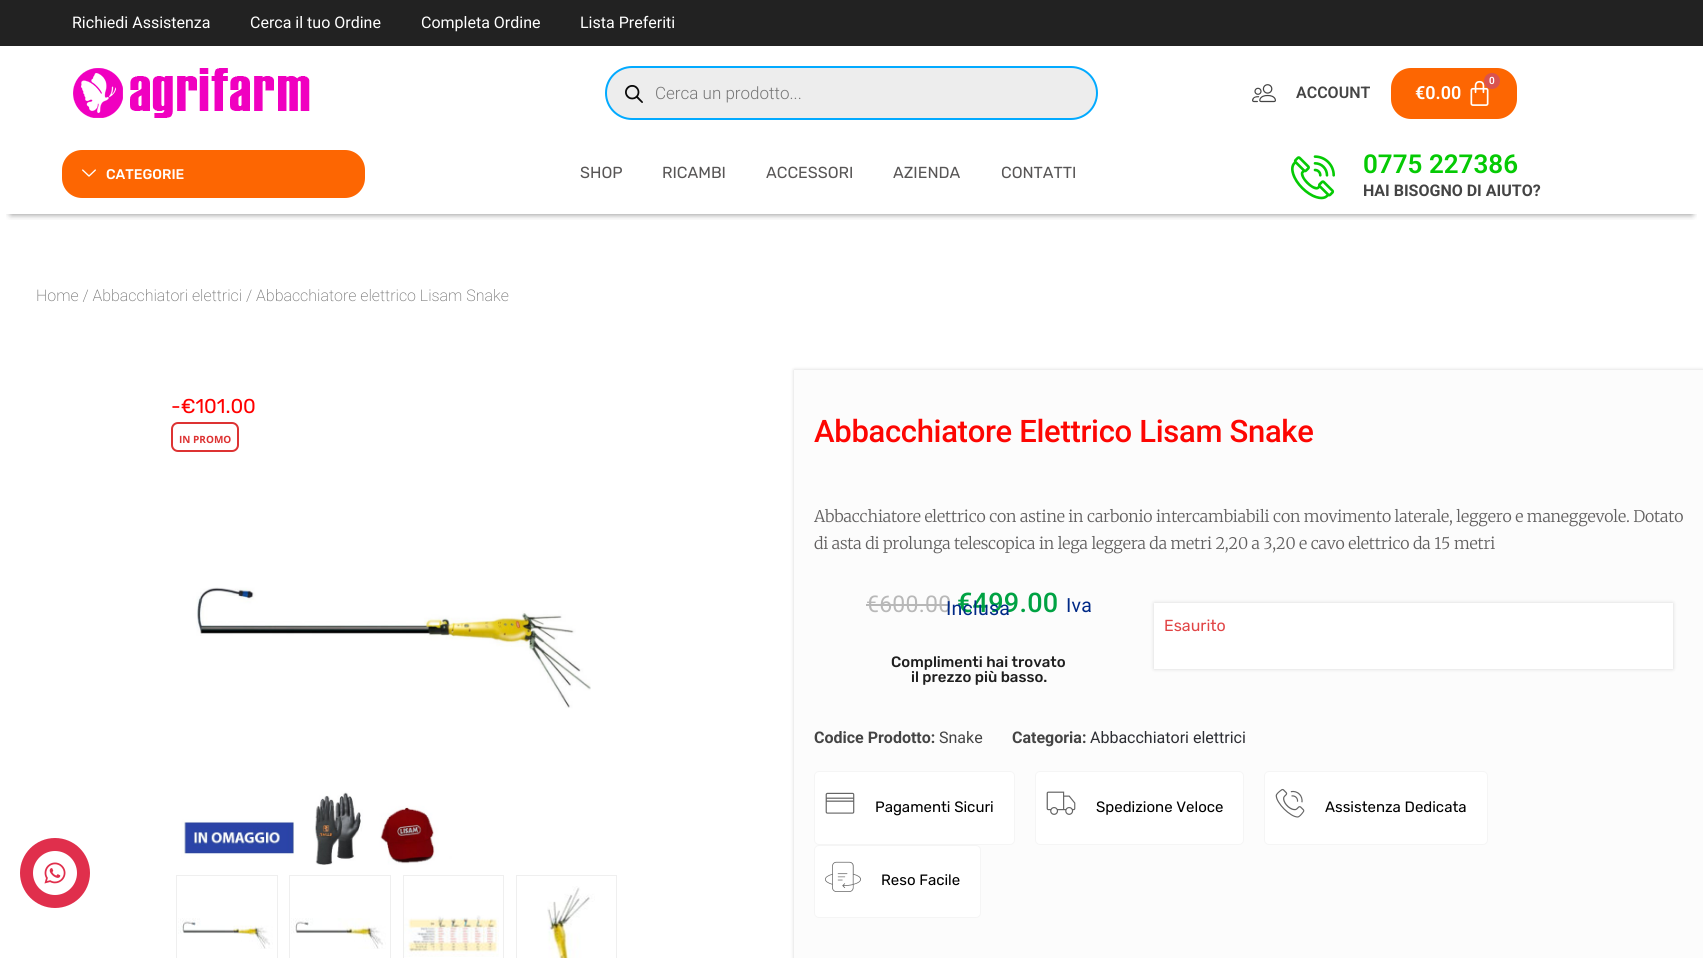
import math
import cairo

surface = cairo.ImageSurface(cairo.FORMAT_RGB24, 1703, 958)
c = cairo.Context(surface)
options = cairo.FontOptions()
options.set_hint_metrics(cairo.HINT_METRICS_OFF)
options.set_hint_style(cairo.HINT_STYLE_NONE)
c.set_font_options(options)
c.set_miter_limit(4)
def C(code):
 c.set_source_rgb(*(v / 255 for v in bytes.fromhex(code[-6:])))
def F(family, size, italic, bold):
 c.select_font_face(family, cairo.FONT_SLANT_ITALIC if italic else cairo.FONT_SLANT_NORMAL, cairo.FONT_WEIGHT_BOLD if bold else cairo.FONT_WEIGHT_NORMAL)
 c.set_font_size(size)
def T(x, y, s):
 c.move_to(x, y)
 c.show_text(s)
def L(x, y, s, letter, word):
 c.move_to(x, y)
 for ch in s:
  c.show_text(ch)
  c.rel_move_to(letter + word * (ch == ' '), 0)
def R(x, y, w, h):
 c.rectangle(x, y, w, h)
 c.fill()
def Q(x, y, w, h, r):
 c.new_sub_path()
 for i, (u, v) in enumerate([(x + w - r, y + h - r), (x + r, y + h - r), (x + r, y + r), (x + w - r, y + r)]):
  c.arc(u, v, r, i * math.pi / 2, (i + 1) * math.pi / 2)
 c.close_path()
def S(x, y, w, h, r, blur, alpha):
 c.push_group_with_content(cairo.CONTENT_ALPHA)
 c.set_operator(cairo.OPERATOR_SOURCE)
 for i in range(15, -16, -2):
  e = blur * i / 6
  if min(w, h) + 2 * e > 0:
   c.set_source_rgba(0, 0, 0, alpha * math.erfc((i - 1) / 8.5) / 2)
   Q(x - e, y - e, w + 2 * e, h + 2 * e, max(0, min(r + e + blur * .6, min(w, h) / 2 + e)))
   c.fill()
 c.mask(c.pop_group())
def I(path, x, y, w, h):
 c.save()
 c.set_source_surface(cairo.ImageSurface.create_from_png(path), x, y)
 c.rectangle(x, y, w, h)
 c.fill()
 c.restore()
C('ffffff')
c.paint()
C('222222')
R(0,0,1703,46)
F('Roboto',16,0,0)
C('ffffff')
T(72,28,'Richiedi Assistenza')
T(250,28,'Cerca il tuo Ordine')
T(421,28,'Completa Ordine')
T(580,28,'Lista Preferiti')
I('1.png',73,68,237,50)
C('ededed')
Q(606,67,491,52,26)
c.fill_preserve()
C('02aaff')
c.stroke()
I('2.png',625,85,18,18)
F('Roboto Light',17,0,0)
C('777777')
T(655,99,'Cerca un prodotto...')
I('3.png',1252,84,24,19)
F('Roboto SemiBold',16,0,0)
C('444444')
T(1296,98,'ACCOUNT')
C('fd6602')
Q(1391,68,126,51,20)
c.fill()
I('4.png',1470,80,19,26)
C('d9534f')
c.arc(1492,81,8,0,2 * math.pi)
c.fill()
F('Roboto SemiBold',10,0,0)
C('ffffff')
T(1489,84,'0')
F('Roboto SemiBold',18,0,0)
T(1415,99,'€0.00')
c.save()
c.rectangle(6,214,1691,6)
c.clip()
C('000000')
S(11,162,1681,52,0,3.5,.5)
c.restore()
C('fd6602')
Q(62,150,303,48,20)
c.fill()
I('5.png',82,169,14,8)
F('Rubik Medium',14,0,0)
C('ffffff')
T(106,179,'CATEGORIE')
F('Rubik',16,0,0)
C('585656')
T(580,178,'SHOP')
T(662,178,'RICAMBI')
T(766,178,'ACCESSORI')
T(893,178,'AZIENDA')
T(1001,178,'CONTATTI')
I('6.png',1291,155,44,45)
F('Roboto SemiBold',26,0,0)
C('05ca04')
T(1363,173,'0775 227386')
F('Roboto',16,0,1)
C('444444')
T(1363,196,'HAI BISOGNO DI AIUTO?')
F('Roboto ExtraLight',16,0,0)
C('777777')
T(36,301,'Home / Abbacchiatori elettrici / Abbacchiatore elettrico Lisam Snake')
F('Rubik',20,0,0)
C('ff0000')
T(171,413,'-€101.00')
Q(172,423,66,28,6)
C('dd3333')
c.stroke()
F('Open Sans',10,0,1)
T(179,443,'IN PROMO')
I('7.png',181,587,410,278)
c.rectangle(176.5,875.5,101,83)
C('efefef')
c.set_line_width(1)
c.stroke()
I('8.png',178,918,95,31)
c.rectangle(289.5,875.5,101,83)
c.stroke()
I('9.png',291,918,95,31)
c.rectangle(403.5,875.5,100,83)
c.stroke()
I('10.png',404,915,95,42)
c.rectangle(516.5,875.5,100,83)
c.stroke()
I('11.png',547,886,48,72)
C('000000')
S(794,370,909,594,0,2,.16)
C('fcfcfc')
R(794,370,909,588)
F('Roboto Medium',31,0,0)
C('fd0602')
L(814,442,'Abbacchiatore Elettrico Lisam Snake',-.3,0)
F('Merriweather Light',16,0,0)
C('626060')
L(814,522,'Abbacchiatore elettrico con astine in carbonio intercambiabili con movimento laterale, leggero e maneggevole. Dotato',-.16,0)
L(814,549,'di asta di prolunga telescopica in lega leggera da metri 2,20 a 3,20 e cavo elettrico da 15 metri',-.16,0)
F('Roboto',23,0,0)
C('b8b8b8')
L(866,612,'€600.00',.25,0)
R(866,604,84,2)
F('Roboto Medium',27,0,0)
C('00a243')
L(957,612,'€499.00',.25,0)
F('Roboto',19.5,0,0)
C('002986')
L(1066,612,'Iva',.25,0)
L(946,615,'Inclusa',.25,0)
F('Rubik Medium',15,0,0)
C('1f1f1f')
T(891,667,'Complimenti hai trovato')
T(911,682,'il prezzo più basso.')
C('000000')
S(1154,603,519,66,0,2,.14)
C('ffffff')
R(1154,603,519,66)
F('Rubik',16,0,0)
C('e14546')
T(1164,631,'Esaurito')
F('Roboto',16,0,1)
C('444444')
T(814,743,'Codice Prodotto:')
F('Roboto',16,0,0)
T(939,743,'Snake')
F('Roboto',16,0,1)
T(1012,743,'Categoria:')
F('Roboto',16,0,0)
C('2c2d33')
T(1090,743,'Abbacchiatori elettrici')
C('ffffff')
Q(814.5,771.5,200,73,4.5)
c.fill_preserve()
C('f5f5f5')
c.stroke()
I('12.png',825,792,30,22)
F('Rubik',15,0,0)
C('000000')
T(875,812,'Pagamenti Sicuri')
C('ffffff')
Q(1035.5,771.5,208,73,4.5)
c.fill_preserve()
C('f5f5f5')
c.stroke()
I('13.png',1046,791,30,24)
C('000000')
T(1096,812,'Spedizione Veloce')
C('ffffff')
Q(1264.5,771.5,223,73,4.5)
c.fill_preserve()
C('f5f5f5')
c.stroke()
I('14.png',1275,788,30,30)
C('000000')
T(1325,812,'Assistenza Dedicata')
C('ffffff')
Q(814.5,845.5,166,72,4.5)
c.fill_preserve()
C('f5f5f5')
c.stroke()
I('15.png',825,861,36,31)
C('000000')
T(881,885,'Reso Facile')
C('e02f4c')
c.new_path()
c.arc(55,873,35,0,2 * math.pi)
c.fill()
C('ffffff')
c.arc(55,873,22,0,2 * math.pi)
c.fill()
I('16.png',44,862,22,22)
surface.write_to_png('o.png')
